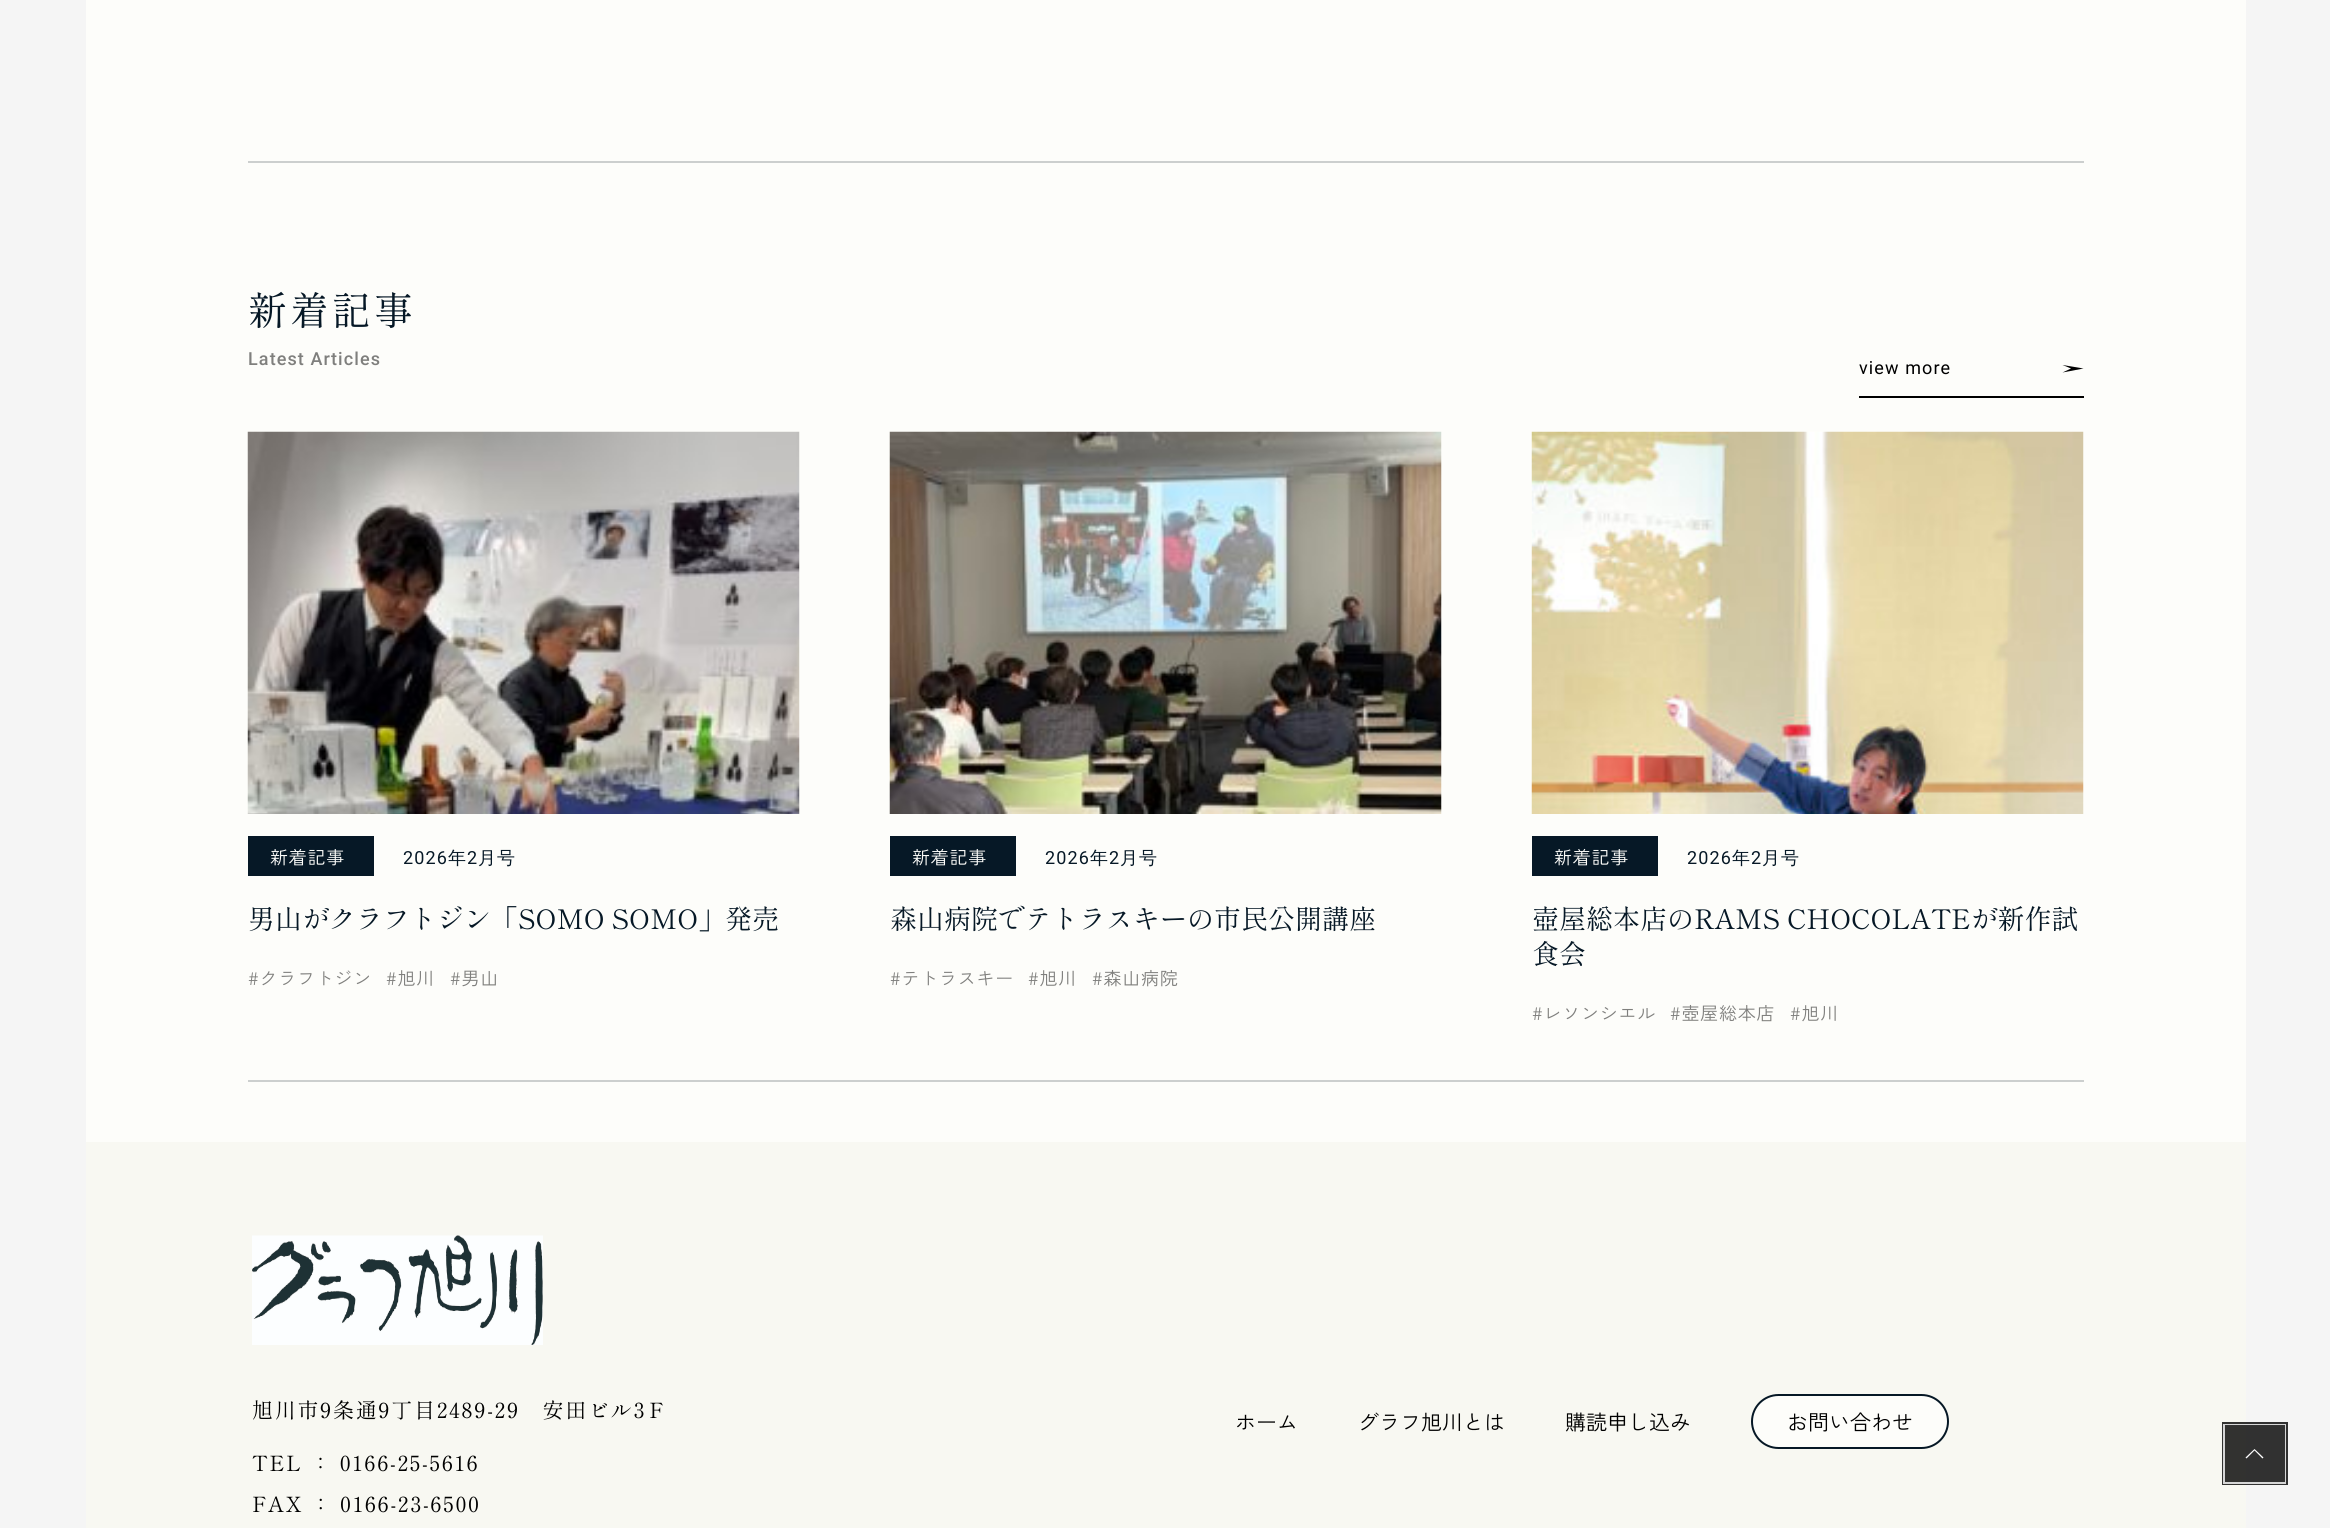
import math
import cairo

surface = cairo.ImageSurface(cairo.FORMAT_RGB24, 2330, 1528)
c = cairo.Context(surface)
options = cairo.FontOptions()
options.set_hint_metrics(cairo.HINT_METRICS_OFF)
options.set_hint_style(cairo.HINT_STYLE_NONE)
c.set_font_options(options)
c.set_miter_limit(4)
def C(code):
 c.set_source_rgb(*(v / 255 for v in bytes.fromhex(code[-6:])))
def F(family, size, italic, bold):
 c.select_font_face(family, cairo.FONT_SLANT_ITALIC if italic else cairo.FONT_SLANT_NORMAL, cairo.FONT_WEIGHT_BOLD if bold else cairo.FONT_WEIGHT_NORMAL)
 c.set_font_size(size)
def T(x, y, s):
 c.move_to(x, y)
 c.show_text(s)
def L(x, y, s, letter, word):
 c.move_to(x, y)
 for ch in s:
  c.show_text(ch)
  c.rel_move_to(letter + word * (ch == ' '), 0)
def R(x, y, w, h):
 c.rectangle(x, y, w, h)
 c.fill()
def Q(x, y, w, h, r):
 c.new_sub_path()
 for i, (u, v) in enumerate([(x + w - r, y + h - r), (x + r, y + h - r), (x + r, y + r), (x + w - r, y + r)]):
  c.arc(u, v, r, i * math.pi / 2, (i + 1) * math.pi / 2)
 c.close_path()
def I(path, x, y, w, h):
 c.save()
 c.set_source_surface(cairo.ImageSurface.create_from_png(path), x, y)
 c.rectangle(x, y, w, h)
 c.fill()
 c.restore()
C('f5f5f5')
c.paint()
C('fdfdfa')
R(86,0,2160,1142)
C('cccfce')
R(248,161,1836,2)
F('Shippori Mincho',39,0,0)
C('061826')
L(248,325,'新着記事',3,0)
F('Roboto Medium',18,0,0)
C('7f7f7d')
L(248,365,'Latest Articles',1.1,0)
C('000000')
R(1859,396,225,2)
F('Roboto',18,0,0)
L(1859,374,'view more',1.1,0)
c.new_path()
c.move_to(2083.5,368.5)
c.line_to(2062.5,372.5)
c.line_to(2071,368.5)
c.line_to(2062.5,365)
c.close_path()
c.fill()
I('1.png',247,431,553,383)
C('061826')
R(248,836,126,40)
F('Zen Kaku Gothic New',18,0,0)
C('fdfdfa')
L(270,864,'新着記事',.75,0)
F('Roboto',18,0,0)
C('061826')
L(403,864,'2026',1.1,0)
F('WenQuanYi Zen Hei Medium',18,0,0)
L(448,864,'年',1.1,0)
F('Roboto',18,0,0)
L(467,864,'2',1.1,0)
F('WenQuanYi Zen Hei Medium',18,0,0)
L(478,864,'月号',1.1,0)
F('Shippori Mincho',27,0,0)
T(248,929,'男山がクラフトジン「SOMO SOMO」発売')
F('Zen Kaku Gothic New',18,0,0)
C('7f7f7d')
L(248,985,'#クラフトジン',.75,0)
L(386,985,'#旭川',.75,0)
L(450,985,'#男山',.75,0)
I('2.png',889,431,553,383)
C('061826')
R(890,836,126,40)
C('fdfdfa')
L(912,864,'新着記事',.75,0)
F('Roboto',18,0,0)
C('061826')
L(1045,864,'2026',1.1,0)
F('WenQuanYi Zen Hei Medium',18,0,0)
L(1090,864,'年',1.1,0)
F('Roboto',18,0,0)
L(1109,864,'2',1.1,0)
F('WenQuanYi Zen Hei Medium',18,0,0)
L(1120,864,'月号',1.1,0)
F('Shippori Mincho',27,0,0)
T(890,929,'森山病院でテトラスキーの市民公開講座')
F('Zen Kaku Gothic New',18,0,0)
C('7f7f7d')
L(890,985,'#テトラスキー',.75,0)
L(1028,985,'#旭川',.75,0)
L(1092,985,'#森山病院',.75,0)
I('3.png',1531,431,553,383)
C('061826')
R(1532,836,126,40)
C('fdfdfa')
L(1554,864,'新着記事',.75,0)
F('Roboto',18,0,0)
C('061826')
L(1687,864,'2026',1.1,0)
F('WenQuanYi Zen Hei Medium',18,0,0)
L(1732,864,'年',1.1,0)
F('Roboto',18,0,0)
L(1751,864,'2',1.1,0)
F('WenQuanYi Zen Hei Medium',18,0,0)
L(1762,864,'月号',1.1,0)
F('Shippori Mincho',27,0,0)
T(1532,929,'壺屋総本店のRAMS CHOCOLATEが新作試')
T(1532,964,'食会')
F('Zen Kaku Gothic New',18,0,0)
C('7f7f7d')
L(1532,1020,'#レソンシエル',.75,0)
L(1670,1020,'#壺屋総本店',.75,0)
L(1790,1020,'#旭川',.75,0)
C('cccfce')
R(248,1080,1836,2)
C('f8f8f2')
R(86,1142,2160,386)
I('4.png',252,1235,291,110)
F('Shippori Mincho',21,0,0)
C('000000')
L(252,1418,'旭川市9条通9丁目2489-29　安田ビル3Ｆ',1.7,0)
L(252,1471,'TEL ： 0166-25-5616',1.7,0)
L(252,1512,'FAX ： 0166-23-6500',1.7,0)
F('Zen Kaku Gothic New',21,0,0)
T(1235,1430,'ホーム')
T(1358,1430,'グラフ旭川とは')
T(1565,1430,'購読申し込み')
C('fdfdfa')
Q(1752,1395,196,53,26.5)
c.fill_preserve()
C('061826')
c.stroke()
C('000000')
T(1787,1430,'お問い合わせ')
c.rectangle(2223.5,1423.5,63,60)
c.set_source_rgba(0,0,0,0.8)
c.set_line_width(3)
c.stroke()
c.rectangle(2224,1425,61,58)
c.set_source_rgba(1,1,1,0.8)
c.set_line_width(2)
c.stroke()
c.set_source_rgba(0,0,0,0.8)
R(2225,1425,60,57)
C('ffffff')
c.new_path()
c.move_to(2263.5,1457.5)
c.line_to(2262.5,1458.5)
c.line_to(2254.5,1450.5)
c.line_to(2246.5,1458.5)
c.line_to(2245.5,1457.5)
c.line_to(2254.5,1449)
c.close_path()
c.fill()
surface.write_to_png('o.png')
